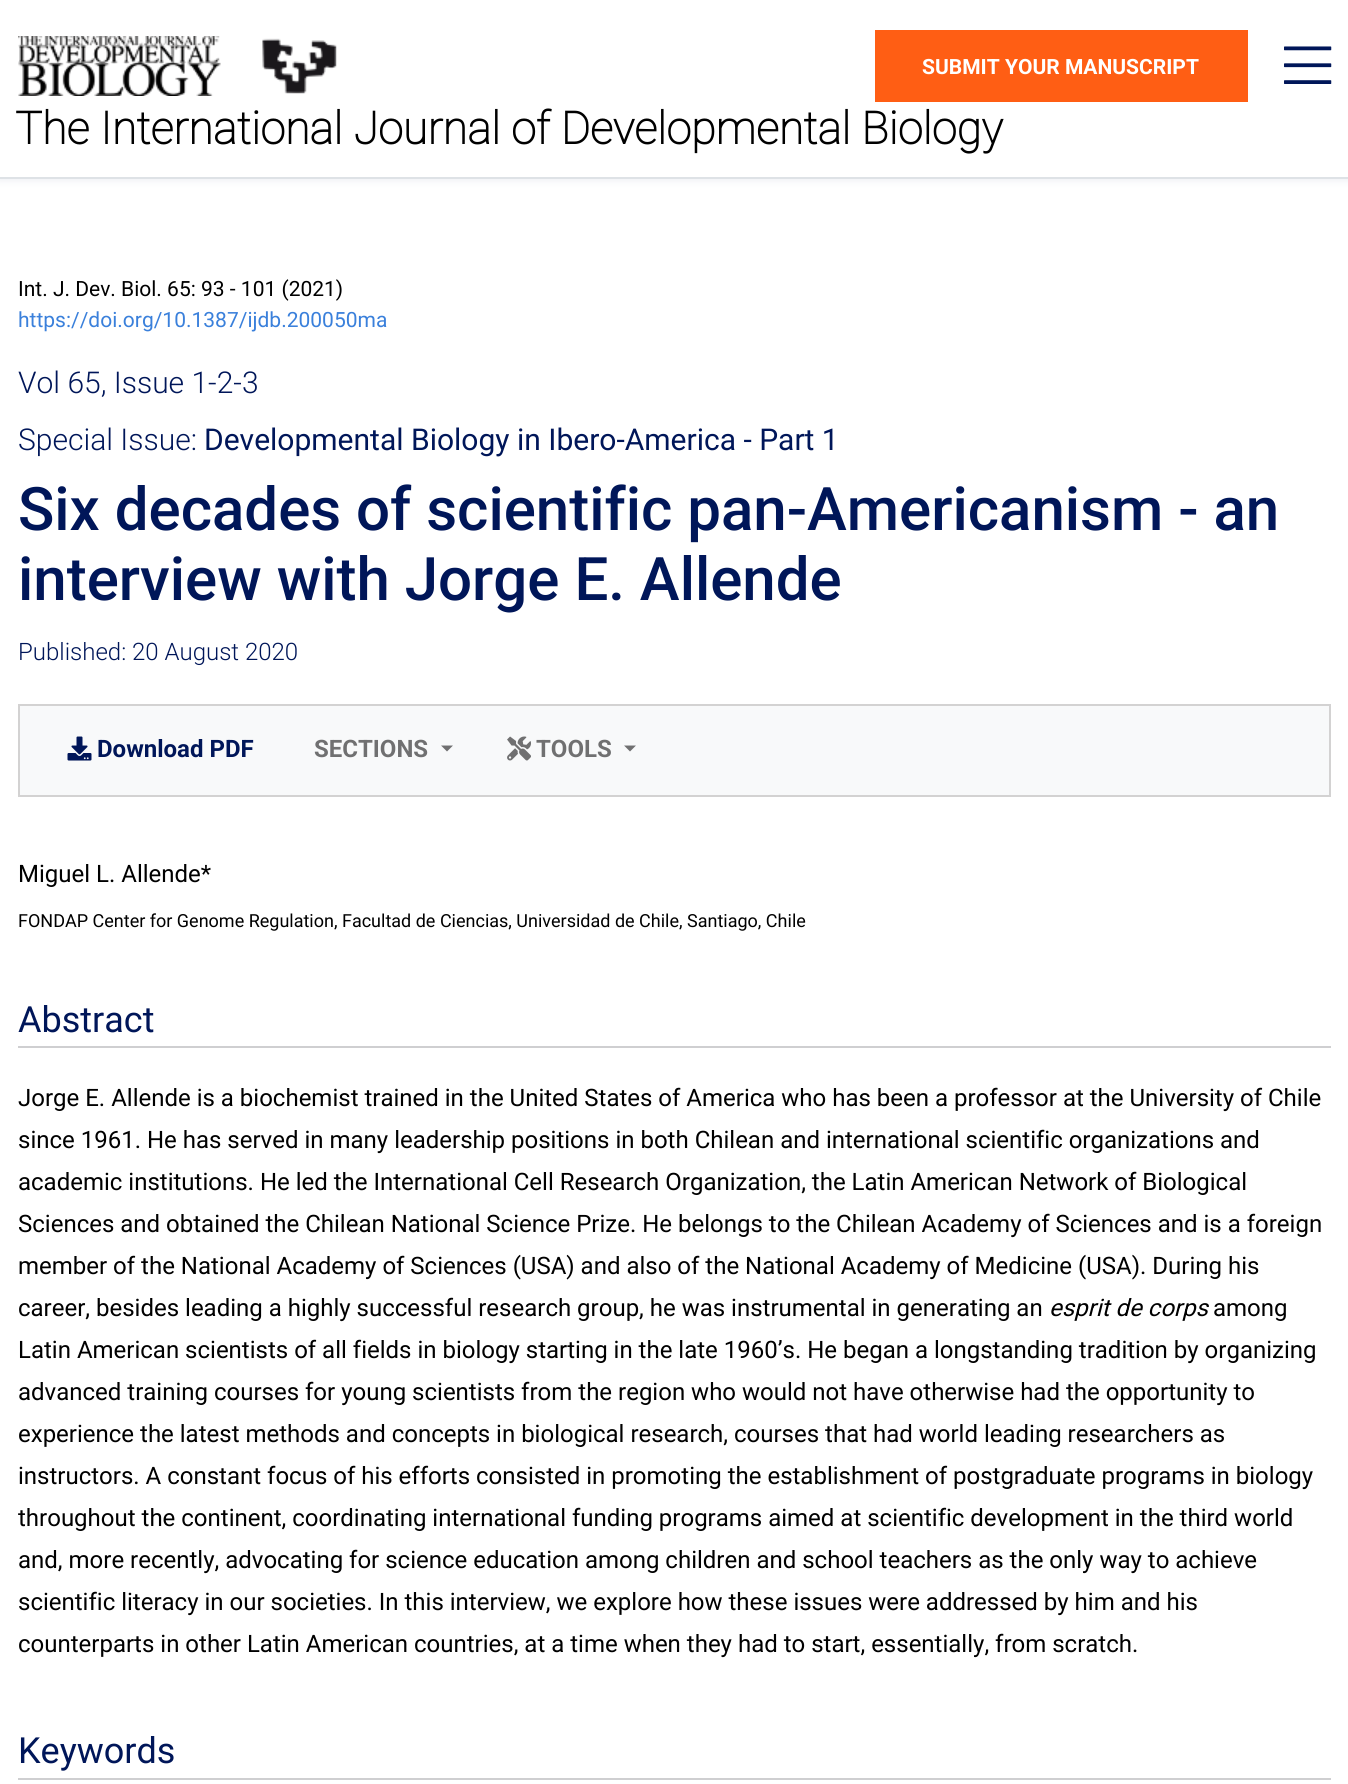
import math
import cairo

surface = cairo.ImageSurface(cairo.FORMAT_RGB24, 1348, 1784)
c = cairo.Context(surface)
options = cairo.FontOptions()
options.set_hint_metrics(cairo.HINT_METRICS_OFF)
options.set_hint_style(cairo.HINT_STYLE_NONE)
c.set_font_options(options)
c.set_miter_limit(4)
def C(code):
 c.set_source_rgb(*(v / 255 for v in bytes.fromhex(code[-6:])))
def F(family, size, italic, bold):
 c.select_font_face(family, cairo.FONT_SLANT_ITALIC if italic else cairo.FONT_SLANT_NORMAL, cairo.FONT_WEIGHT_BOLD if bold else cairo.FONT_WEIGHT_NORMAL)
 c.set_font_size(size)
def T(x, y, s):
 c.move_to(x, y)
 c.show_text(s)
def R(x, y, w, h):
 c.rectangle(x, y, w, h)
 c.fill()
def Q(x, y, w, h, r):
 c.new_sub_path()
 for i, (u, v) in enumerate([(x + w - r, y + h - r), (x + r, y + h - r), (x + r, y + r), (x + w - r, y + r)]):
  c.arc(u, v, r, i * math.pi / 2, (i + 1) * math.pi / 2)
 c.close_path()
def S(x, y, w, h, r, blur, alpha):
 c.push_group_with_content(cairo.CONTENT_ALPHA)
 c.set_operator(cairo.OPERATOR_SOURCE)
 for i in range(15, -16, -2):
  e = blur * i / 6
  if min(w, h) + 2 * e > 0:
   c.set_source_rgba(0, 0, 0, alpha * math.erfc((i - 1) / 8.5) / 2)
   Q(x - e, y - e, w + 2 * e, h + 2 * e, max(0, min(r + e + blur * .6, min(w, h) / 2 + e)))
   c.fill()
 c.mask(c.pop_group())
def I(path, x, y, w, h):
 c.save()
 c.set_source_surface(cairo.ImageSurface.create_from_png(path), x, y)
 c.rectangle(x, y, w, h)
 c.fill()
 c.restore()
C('ffffff')
c.paint()
C('ebedf2')
S(-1,-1,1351,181,0,4,1)
C('ffffff')
R(0,0,1348,177)
C('dee2e6')
R(0,177,1348,2)
I('1.png',18,36,203,60)
I('2.png',262,38,75,56)
C('ff5e14')
R(875,30,373,72)
F('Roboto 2',21,0,1)
C('ffffff')
T(922,74,'SUBMIT YOUR MANUSCRIPT')
I('3.png',1284,46,48,38)
F('Roboto',45,0,1)
C('000000')
T(15,144,'The International Journal of Developmental Biology')
F('Roboto',21,0,0)
T(18,296,'Int. J. Dev. Biol. 65: 93 - 101 (2021)')
C('3a80db')
T(18,327,'https://doi.org/10.1387/ijdb.200050ma')
F('Roboto Light',30,0,0)
C('001659')
T(18,393,'Vol 65, Issue 1-2-3')
T(18,450,'Special Issue:')
F('Roboto',30,0,0)
T(204,450,'Developmental Biology in Ibero-America - Part 1')
F('Roboto Medium',60,0,0)
T(18,530,'Six decades of scientific pan-Americanism - an')
T(18,600,'interview with Jorge E. Allende')
F('Roboto Light',24,0,0)
T(18,660,'Published: 20 August 2020')
C('f8f9fa')
c.rectangle(19,705,1311,91)
c.fill_preserve()
C('d3d2d2')
c.stroke()
I('4.png',67,736,25,25)
F('Roboto 2',24,0,1)
C('001659')
T(97,757,'Download PDF')
C('707071')
T(314,757,'SECTIONS')
c.new_path()
c.move_to(441,745.5)
c.line_to(453,745.5)
c.line_to(447,751.5)
c.close_path()
c.fill()
I('5.png',507,736,24,25)
T(536,757,'TOOLS')
c.new_path()
c.move_to(624,745.5)
c.line_to(636,745.5)
c.line_to(630,751.5)
c.close_path()
c.fill()
F('Roboto',24,0,0)
C('000000')
T(18,882,'Miguel L. Allende*')
F('Roboto',18,0,0)
T(18,927,'FONDAP Center for Genome Regulation, Facultad de Ciencias, Universidad de Chile, Santiago, Chile')
C('cfcfd1')
R(18,1046,1313,2)
F('Roboto',36,0,0)
C('001659')
T(18,1032,'Abstract')
F('Roboto',24,0,0)
C('000000')
T(18,1106,'Jorge E. Allende is a biochemist trained in the United States of America who has been a professor at the University of Chile')
T(18,1148,'since 1961. He has served in many leadership positions in both Chilean and international scientific organizations and')
T(18,1190,'academic institutions. He led the International Cell Research Organization, the Latin American Network of Biological')
T(18,1232,'Sciences and obtained the Chilean National Science Prize. He belongs to the Chilean Academy of Sciences and is a foreign')
T(18,1274,'member of the National Academy of Sciences (USA) and also of the National Academy of Medicine (USA). During his')
T(18,1316,'career, besides leading a highly successful research group, he was instrumental in generating an')
F('Roboto',24,1,0)
T(1049,1316,'esprit de corps')
F('Roboto',24,0,0)
T(1213,1316,'among')
T(18,1358,'Latin American scientists of all fields in biology starting in the late 1960’s. He began a longstanding tradition by organizing')
T(18,1400,'advanced training courses for young scientists from the region who would not have otherwise had the opportunity to')
T(18,1442,'experience the latest methods and concepts in biological research, courses that had world leading researchers as')
T(18,1484,'instructors. A constant focus of his efforts consisted in promoting the establishment of postgraduate programs in biology')
T(18,1526,'throughout the continent, coordinating international funding programs aimed at scientific development in the third world')
T(18,1568,'and, more recently, advocating for science education among children and school teachers as the only way to achieve')
T(18,1610,'scientific literacy in our societies. In this interview, we explore how these issues were addressed by him and his')
T(18,1652,'counterparts in other Latin American countries, at a time when they had to start, essentially, from scratch.')
C('cfcfd1')
R(18,1778,1313,2)
F('Roboto',36,0,0)
C('001659')
T(18,1763,'Keywords')
surface.write_to_png('o.png')
